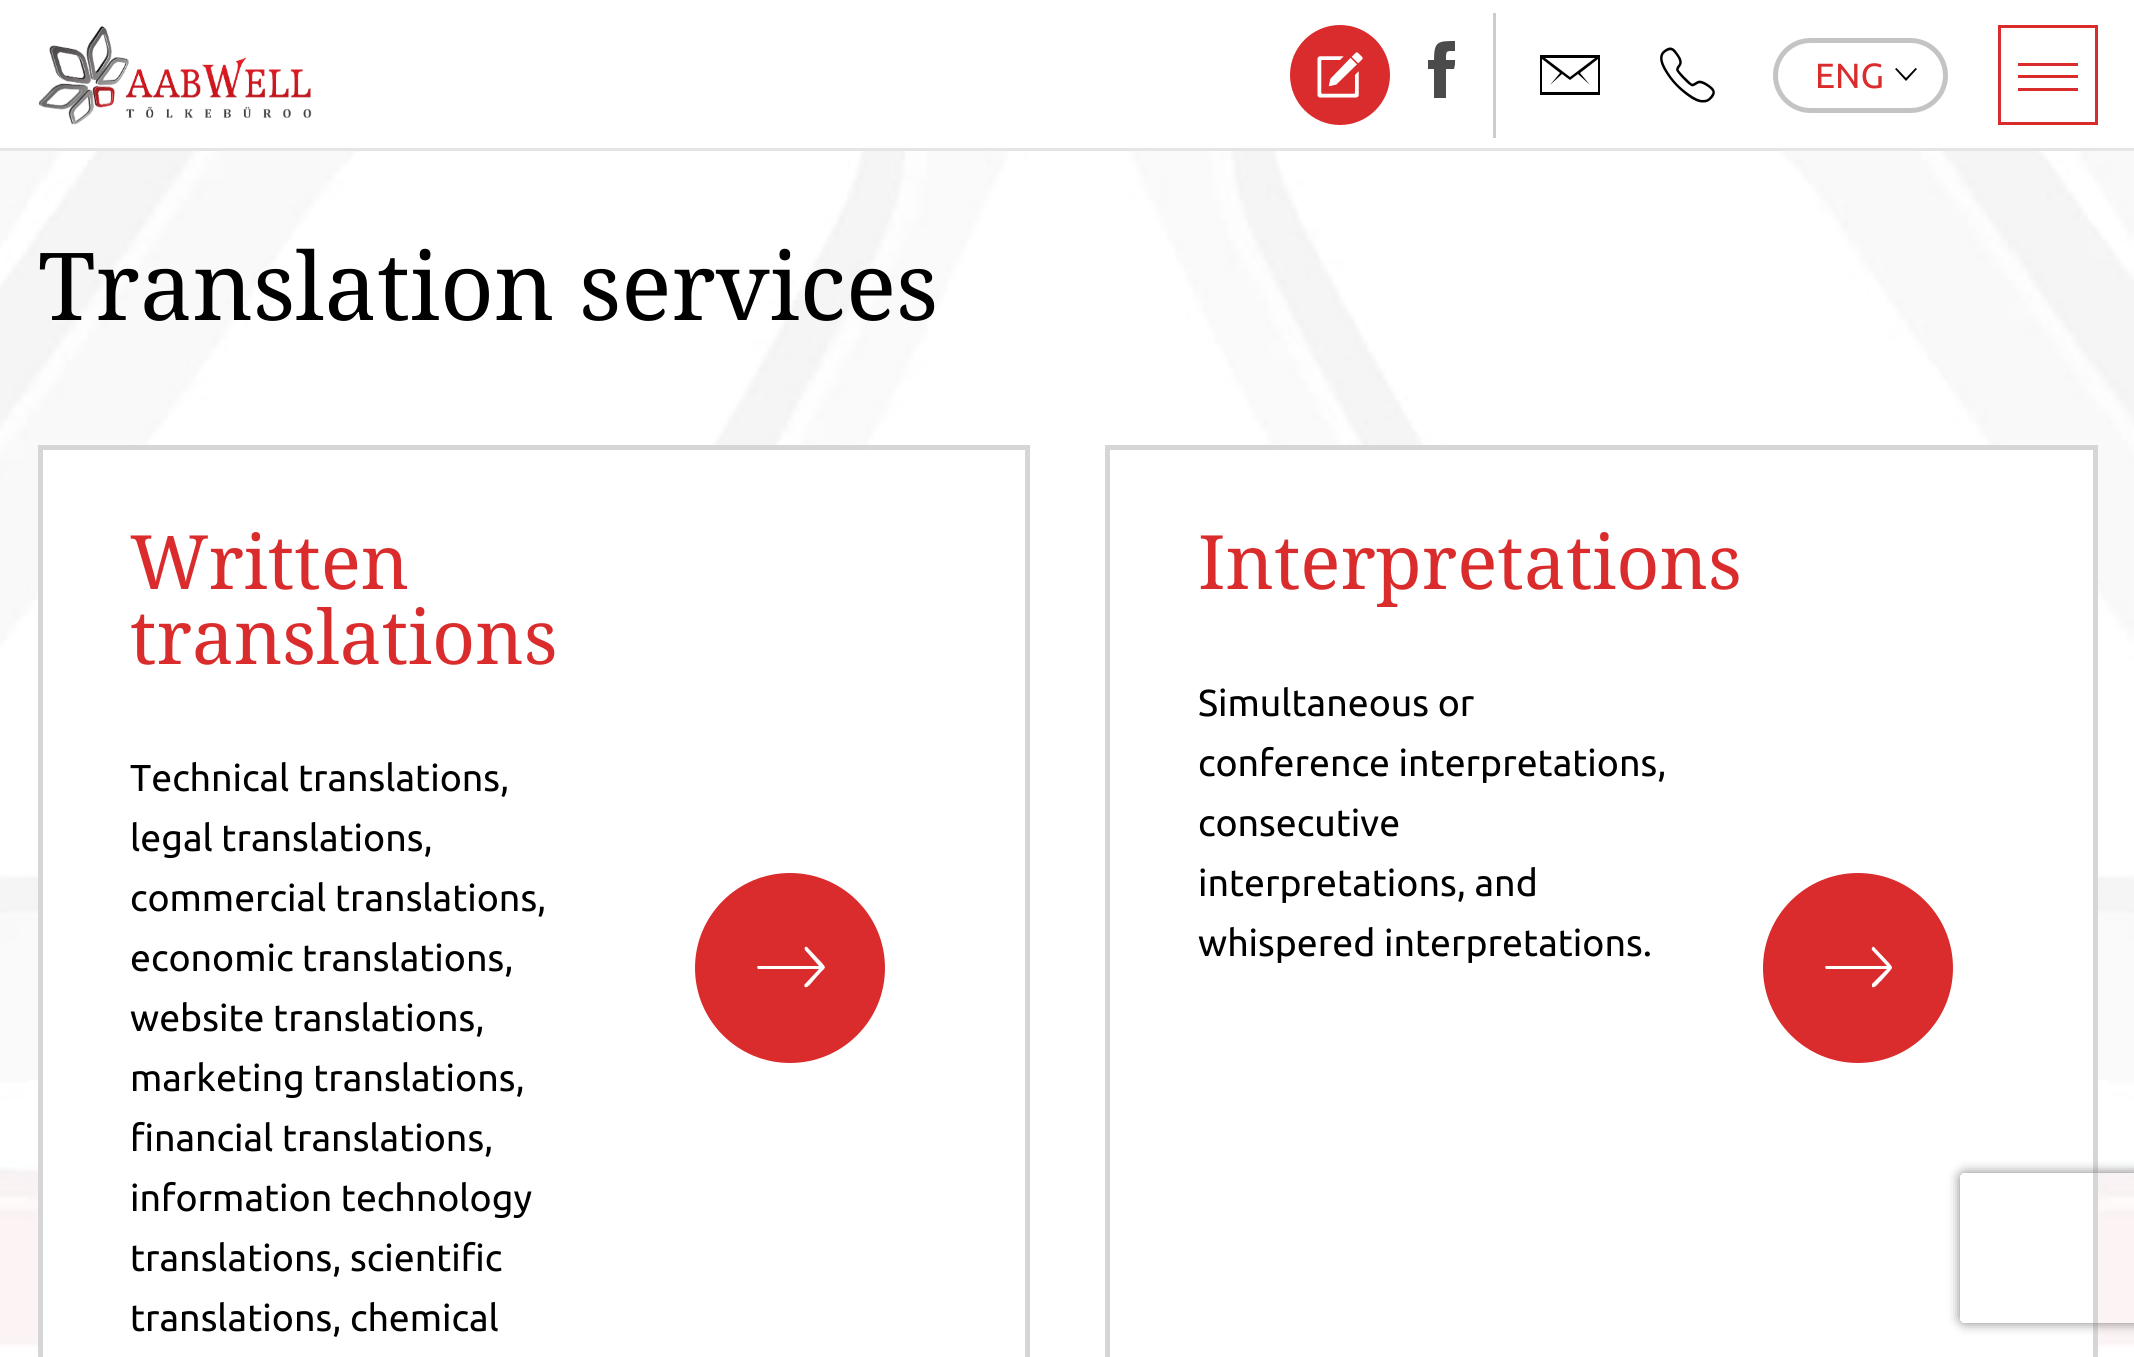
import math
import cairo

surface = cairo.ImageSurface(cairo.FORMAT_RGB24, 2134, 1357)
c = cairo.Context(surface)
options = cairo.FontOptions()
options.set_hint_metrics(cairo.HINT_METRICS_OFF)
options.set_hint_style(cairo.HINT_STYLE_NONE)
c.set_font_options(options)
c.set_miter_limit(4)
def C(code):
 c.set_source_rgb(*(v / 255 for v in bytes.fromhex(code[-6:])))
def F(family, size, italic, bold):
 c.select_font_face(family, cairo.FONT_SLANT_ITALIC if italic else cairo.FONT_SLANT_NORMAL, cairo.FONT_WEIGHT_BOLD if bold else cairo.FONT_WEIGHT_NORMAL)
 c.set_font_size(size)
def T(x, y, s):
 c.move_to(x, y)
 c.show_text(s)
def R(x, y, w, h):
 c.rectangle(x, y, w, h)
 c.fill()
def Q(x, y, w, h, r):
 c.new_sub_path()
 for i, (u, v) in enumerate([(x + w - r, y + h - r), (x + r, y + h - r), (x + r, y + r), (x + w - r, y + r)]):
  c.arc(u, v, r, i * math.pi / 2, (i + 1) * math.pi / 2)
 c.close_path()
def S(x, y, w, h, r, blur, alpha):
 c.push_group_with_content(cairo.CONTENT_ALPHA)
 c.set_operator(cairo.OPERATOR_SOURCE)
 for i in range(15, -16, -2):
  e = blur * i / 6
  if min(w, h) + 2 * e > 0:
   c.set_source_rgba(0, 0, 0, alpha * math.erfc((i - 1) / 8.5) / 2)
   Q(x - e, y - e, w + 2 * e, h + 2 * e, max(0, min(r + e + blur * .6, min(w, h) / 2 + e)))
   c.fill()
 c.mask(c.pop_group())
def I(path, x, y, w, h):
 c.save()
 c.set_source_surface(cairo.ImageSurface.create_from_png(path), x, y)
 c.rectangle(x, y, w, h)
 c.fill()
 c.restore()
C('ffffff')
c.paint()
I('1.png',0,151,2134,1206)
C('e5e5e5')
R(0,148,2134,3)
I('2.png',38,26,274,99)
C('da2c2c')
c.arc(1340,75,50,0,2 * math.pi)
c.fill()
I('3.png',1317,52,46,46)
c.save()
c.rectangle(1428,38,27,75)
c.clip()
C('4b4b4b')
c.new_path()
c.move_to(1446,60)
c.line_to(1456,60)
c.line_to(1454,69)
c.line_to(1446,69)
c.line_to(1446,98)
c.line_to(1434,98)
c.line_to(1434,69)
c.line_to(1428,69)
c.line_to(1428,60)
c.line_to(1434,60)
c.curve_to(1434,41,1438,41,1456,41)
c.line_to(1456,51)
c.curve_to(1446,51,1446,50,1446,60)
c.close_path()
c.fill()
c.restore()
C('cccccc')
R(1493,13,3,125)
C('000000')
c.new_path()
c.move_to(1540,55)
c.line_to(1600,55)
c.line_to(1600,95)
c.line_to(1540,95)
c.close_path()
c.move_to(1570,77)
c.line_to(1595,58)
c.line_to(1545,58)
c.close_path()
c.move_to(1542,92)
c.line_to(1598,92)
c.line_to(1598,59)
c.line_to(1580,73)
c.line_to(1590,85)
c.line_to(1578,74)
c.line_to(1570,80)
c.line_to(1562,74)
c.line_to(1550,85)
c.line_to(1560,73)
c.line_to(1542,59)
c.close_path()
c.fill()
I('4.png',1660,47,55,56)
Q(1775.5,40.5,170,70,35)
C('c4c4c4')
c.set_line_width(5)
c.stroke()
F('Ubuntu',35,0,0)
C('da2c2c')
T(1815,88,'ENG')
C('000000')
c.new_path()
c.move_to(1915.5,68)
c.line_to(1917,69)
c.line_to(1906,81)
c.line_to(1895,69)
c.line_to(1896.5,68)
c.line_to(1906,78)
c.close_path()
c.fill()
c.rectangle(1999.5,26.5,97,97)
C('da2c2c')
c.set_line_width(3)
c.stroke()
R(2018,63,60,3)
R(2018,75,60,3)
R(2018,88,60,3)
F('Noto Serif',93.75,0,0)
C('000000')
T(38,320,'Translation services')
C('ffffff')
R(43,450,824,907)
c.rectangle(40.5,447.5,987,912)
C('d6d6d6')
c.set_line_width(5)
c.stroke()
F('Noto Serif',75,0,0)
C('da2c2c')
T(130,589,'Written')
T(130,664,'translations')
F('Ubuntu',37.5,0,0)
C('000000')
T(130,791,'Technical translations,')
T(130,851,'legal translations,')
T(130,911,'commercial translations,')
T(130,971,'economic translations,')
T(130,1031,'website translations,')
T(130,1091,'marketing translations,')
T(130,1151,'financial translations,')
T(130,1211,'information technology')
T(130,1271,'translations, scientific')
T(130,1331,'translations, chemical')
C('da2c2c')
c.new_path()
c.arc(790,968,95,0,2 * math.pi)
c.fill()
C('ffffff')
c.new_path()
c.move_to(805,987)
c.curve_to(804,986,804,985,805,984)
c.line_to(819,969)
c.line_to(758,969)
c.curve_to(757,968,757,966,758,966)
c.line_to(819,966)
c.line_to(805,950)
c.curve_to(804,948,805,946,807,947)
c.line_to(822,963)
c.curve_to(826,968,826,967,821,972)
c.line_to(813,981)
c.curve_to(813,981,807,989,805,987)
c.close_path()
c.fill()
R(1273,450,820,907)
c.rectangle(1107.5,447.5,988,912)
C('d6d6d6')
c.stroke()
F('Noto Serif',75,0,0)
C('da2c2c')
T(1198,589,'Interpretations')
F('Ubuntu',37.5,0,0)
C('000000')
T(1198,716,'Simultaneous or')
T(1198,776,'conference interpretations,')
T(1198,836,'consecutive')
T(1198,896,'interpretations, and')
T(1198,956,'whispered interpretations.')
C('da2c2c')
c.new_path()
c.arc(1858,968,95,0,2 * math.pi)
c.fill()
C('ffffff')
c.new_path()
c.move_to(1872,987)
c.curve_to(1872,986,1872,985,1872,984)
c.line_to(1887,969)
c.line_to(1826,969)
c.curve_to(1825,968,1825,966,1826,966)
c.line_to(1887,966)
c.line_to(1872,950)
c.curve_to(1871,948,1873,946,1874,947)
c.line_to(1889,963)
c.curve_to(1893,968,1893,967,1889,972)
c.line_to(1881,981)
c.curve_to(1880,981,1875,989,1872,987)
c.close_path()
c.fill()
c.save()
c.set_fill_rule(cairo.FILL_RULE_EVEN_ODD)
c.new_path()
c.move_to(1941,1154)
c.line_to(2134,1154)
c.line_to(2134,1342)
c.line_to(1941,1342)
c.close_path()
c.move_to(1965,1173)
c.line_to(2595,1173)
c.curve_to(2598,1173,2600,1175,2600,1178)
c.line_to(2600,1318)
c.curve_to(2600,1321,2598,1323,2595,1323)
c.line_to(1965,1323)
c.curve_to(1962,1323,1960,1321,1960,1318)
c.line_to(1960,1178)
c.curve_to(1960,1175,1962,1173,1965,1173)
c.close_path()
c.clip()
C('808080')
S(1960,1173,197,150,5,6,1)
c.restore()
surface.write_to_png('o.png')
